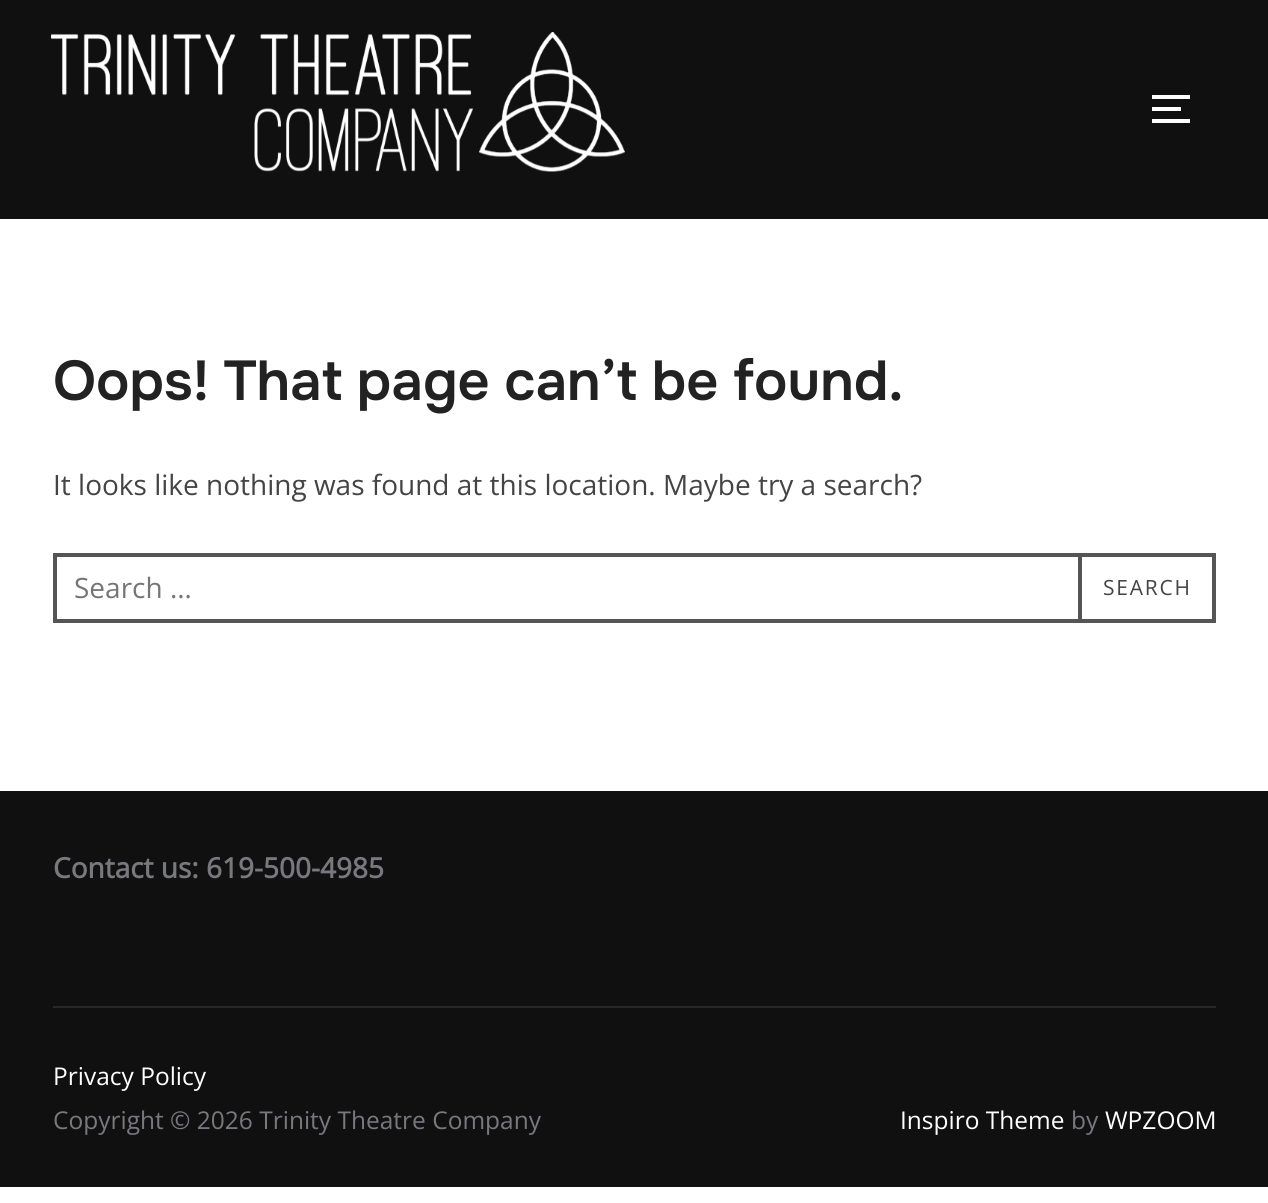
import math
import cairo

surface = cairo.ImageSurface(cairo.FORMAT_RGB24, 1268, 1203)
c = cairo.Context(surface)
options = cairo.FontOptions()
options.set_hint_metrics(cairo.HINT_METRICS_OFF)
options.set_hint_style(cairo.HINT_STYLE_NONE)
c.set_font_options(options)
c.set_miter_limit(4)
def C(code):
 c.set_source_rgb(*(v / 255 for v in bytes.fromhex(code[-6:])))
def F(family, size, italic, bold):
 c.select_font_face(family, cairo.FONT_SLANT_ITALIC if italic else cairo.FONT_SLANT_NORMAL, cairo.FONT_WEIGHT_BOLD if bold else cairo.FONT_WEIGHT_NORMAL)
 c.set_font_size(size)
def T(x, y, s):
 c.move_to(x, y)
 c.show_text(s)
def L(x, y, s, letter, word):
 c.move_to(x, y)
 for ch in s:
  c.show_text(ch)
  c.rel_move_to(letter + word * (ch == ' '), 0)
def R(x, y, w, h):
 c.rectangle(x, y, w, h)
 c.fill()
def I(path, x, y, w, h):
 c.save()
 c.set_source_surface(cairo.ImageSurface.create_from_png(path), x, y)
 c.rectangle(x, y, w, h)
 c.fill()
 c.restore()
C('ffffff')
c.paint()
C('101010')
R(0,0,1268,219)
I('1.png',51,32,574,140)
C('ffffff')
R(1152,95,38,4)
R(1152,107,29,4)
R(1152,119,38,4)
F('Onest SemiBold',56,0,0)
C('222222')
L(53,400,'Oops! That page can’t be found.',0,-1)
F('Open Sans',28,0,0)
C('444444')
T(53,495,'It looks like nothing was found at this location. Maybe try a search?')
c.rectangle(55,555,1159,66)
C('565555')
c.set_line_width(4)
c.stroke()
C('757575')
T(74,598,'Search …')
c.rectangle(1080,555,134,66)
C('565555')
c.stroke()
F('Open Sans',21,0,0)
C('444444')
L(1103,595,'SEARCH',1.75,0)
C('101010')
R(0,791,1268,396)
F('Open Sans',28,0,1)
C('78787f')
T(53,878,'Contact us: 619-500-4985')
C('282828')
R(53,1006,1163,2)
F('Open Sans',24.5,0,0)
C('ffffff')
T(53,1085,'Privacy Policy')
C('78787f')
T(53,1129,'Copyright © 2026 Trinity Theatre Company')
C('ffffff')
T(900,1129,'Inspiro Theme')
C('78787f')
T(1071,1129,'by')
C('ffffff')
T(1105,1129,'WPZOOM')
surface.write_to_png('o.png')
